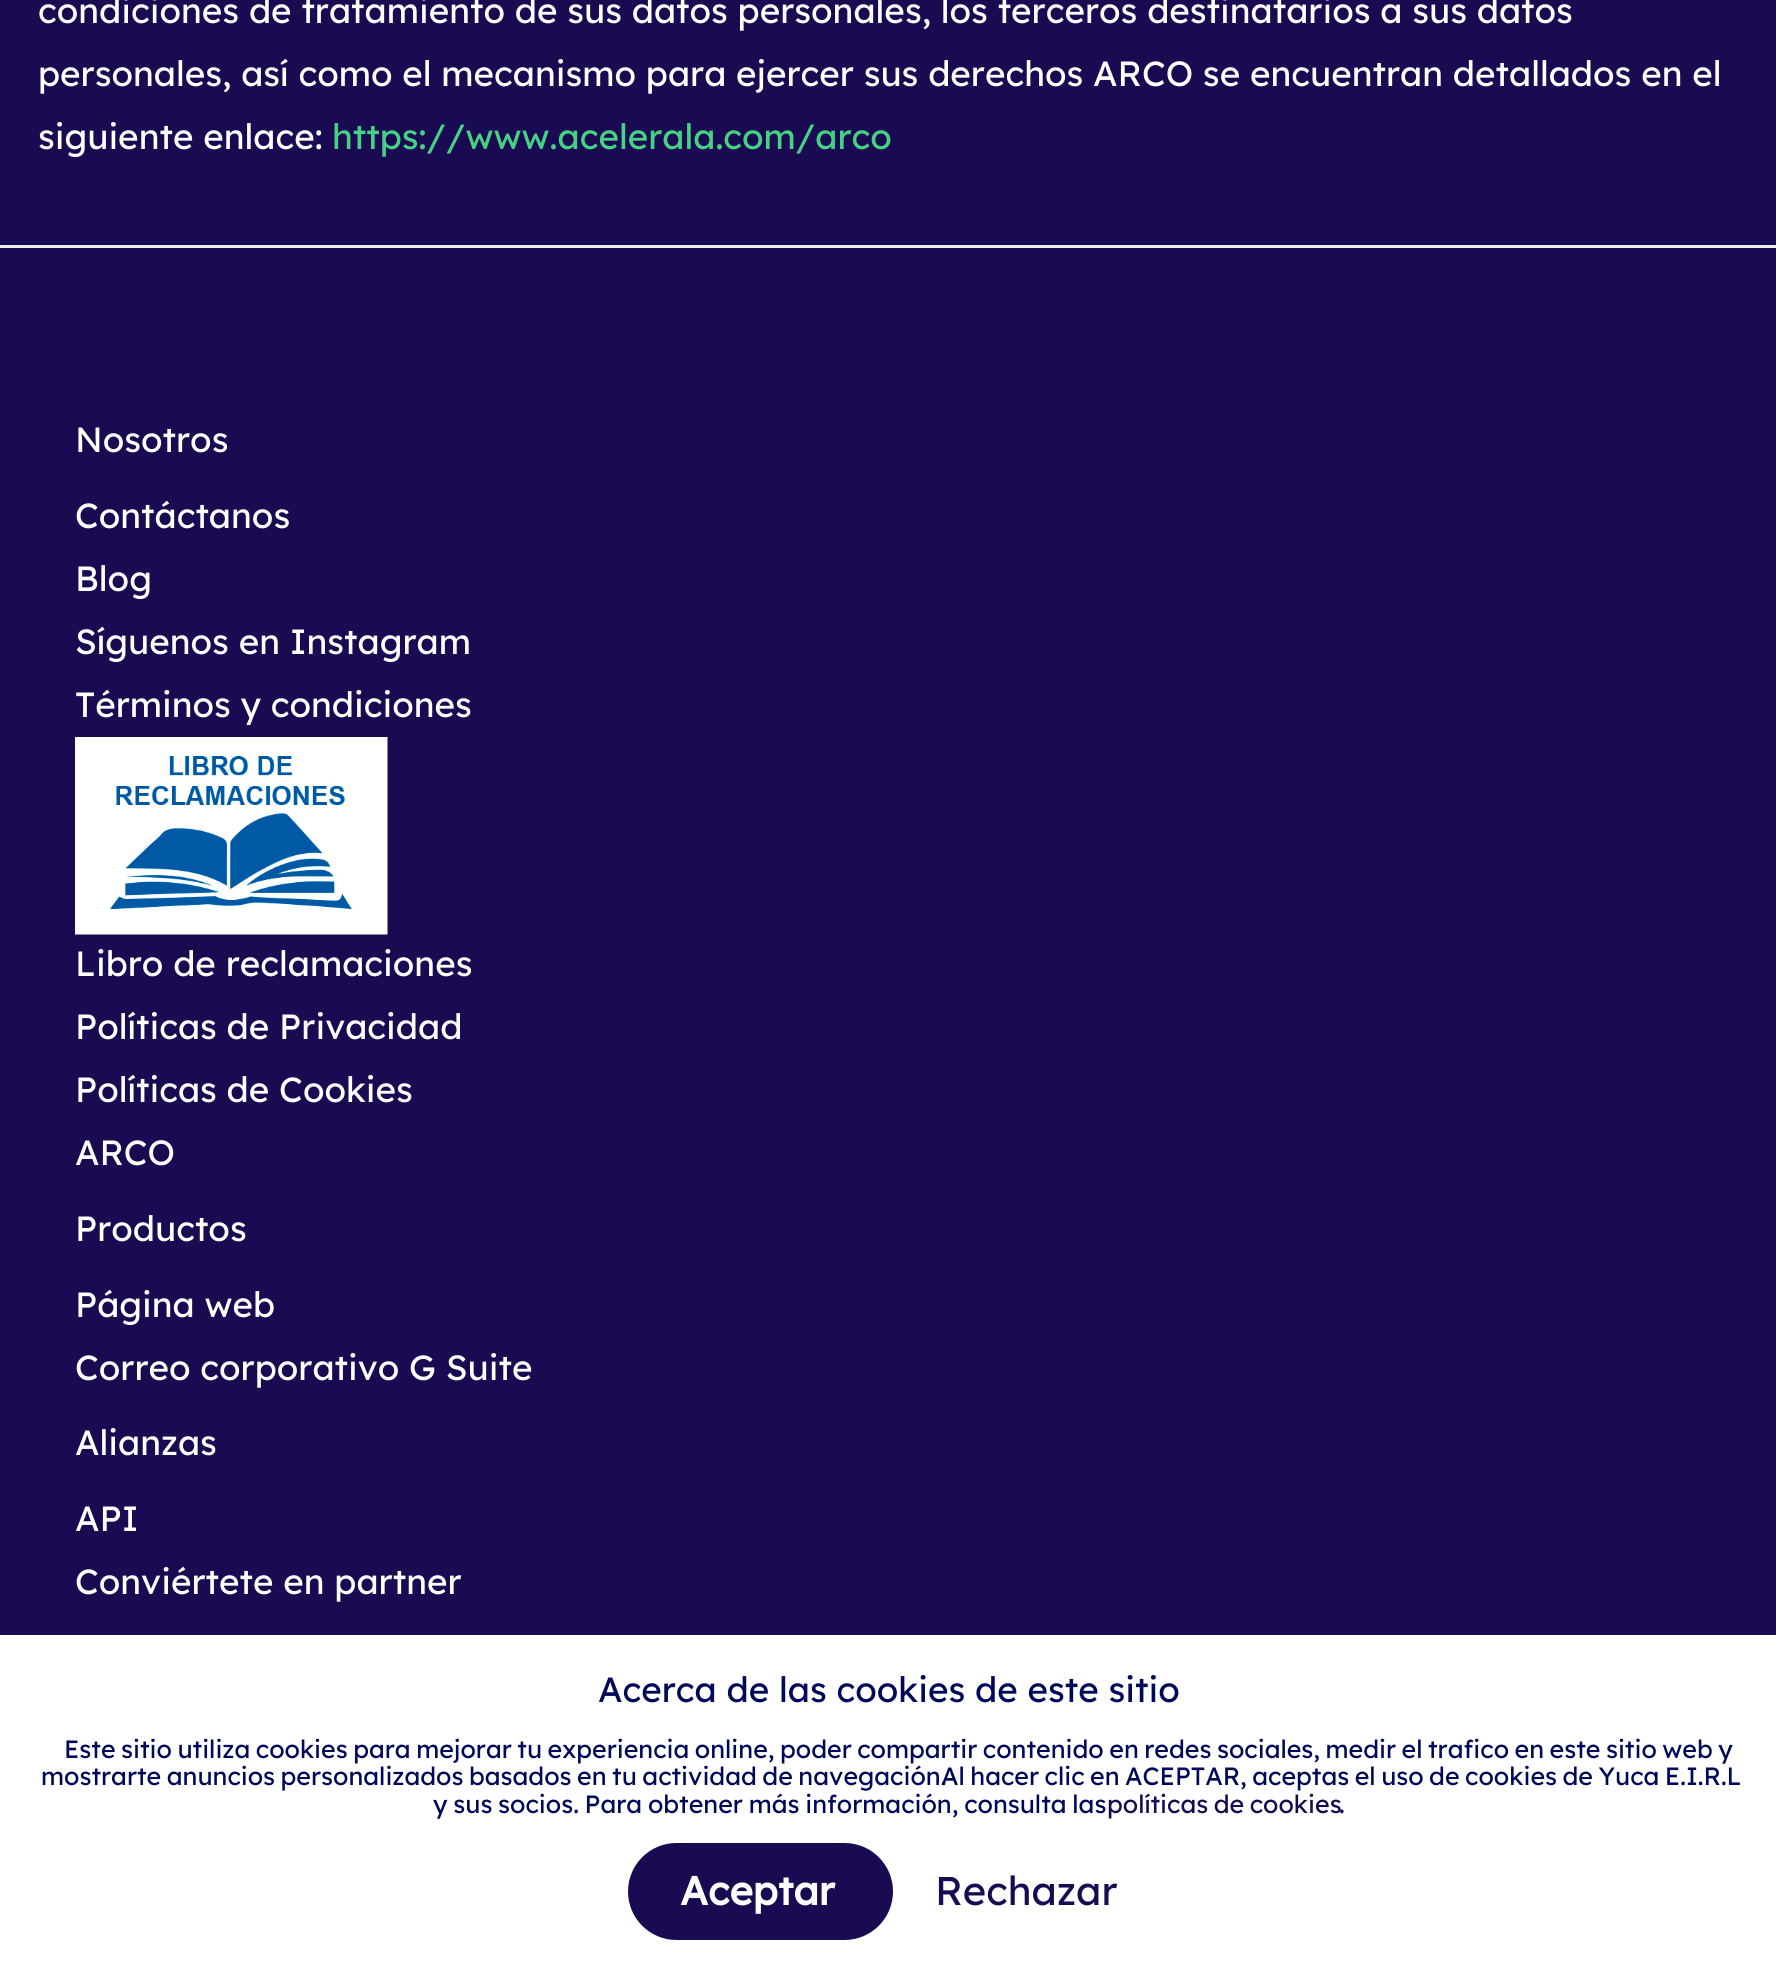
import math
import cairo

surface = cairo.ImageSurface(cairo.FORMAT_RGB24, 1776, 1963)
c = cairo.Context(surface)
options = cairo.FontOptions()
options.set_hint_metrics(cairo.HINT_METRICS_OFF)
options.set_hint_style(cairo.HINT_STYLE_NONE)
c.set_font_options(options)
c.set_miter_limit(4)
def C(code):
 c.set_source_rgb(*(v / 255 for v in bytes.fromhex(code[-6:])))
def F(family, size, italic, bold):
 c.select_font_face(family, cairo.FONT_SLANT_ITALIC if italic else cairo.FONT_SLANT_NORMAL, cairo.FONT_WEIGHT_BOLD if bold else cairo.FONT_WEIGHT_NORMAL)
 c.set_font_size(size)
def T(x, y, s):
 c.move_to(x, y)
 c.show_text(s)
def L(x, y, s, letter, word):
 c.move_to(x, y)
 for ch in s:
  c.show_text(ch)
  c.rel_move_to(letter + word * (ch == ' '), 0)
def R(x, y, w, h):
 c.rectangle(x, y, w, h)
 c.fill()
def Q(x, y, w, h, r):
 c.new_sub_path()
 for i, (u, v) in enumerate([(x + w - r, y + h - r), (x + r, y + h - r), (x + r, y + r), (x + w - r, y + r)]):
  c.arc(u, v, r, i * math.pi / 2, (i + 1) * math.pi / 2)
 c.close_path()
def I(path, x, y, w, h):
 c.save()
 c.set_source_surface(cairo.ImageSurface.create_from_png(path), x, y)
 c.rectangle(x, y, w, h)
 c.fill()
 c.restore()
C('190a52')
c.paint()
F('Lexend',35,0,0)
C('ffffff')
T(38,23,'condiciones de tratamiento de sus datos personales, los terceros destinatarios a sus datos')
T(38,86,'personales, así como el mecanismo para ejercer sus derechos ARCO se encuentran detallados en el')
T(38,149,'siguiente enlace:')
C('47d183')
T(332,149,'https://www.acelerala.com/arco')
C('eeeeee')
R(0,245,1776,3)
C('ffffff')
T(75,452,'Nosotros')
T(75,528,'Contáctanos')
T(75,591,'Blog')
T(75,654,'Síguenos en Instagram')
T(75,717,'Términos y condiciones')
I('1.png',75,737,313,198)
T(75,976,'Libro de reclamaciones')
T(75,1039,'Políticas de Privacidad')
T(75,1102,'Políticas de Cookies')
T(75,1165,'ARCO')
T(75,1241,'Productos')
T(75,1317,'Página web')
T(75,1380,'Correo corporativo G Suite')
T(75,1455,'Alianzas')
T(75,1531,'API')
T(75,1594,'Conviértete en partner')
R(0,1635,1776,328)
C('000859')
T(598,1702,'Acerca de las cookies de este sitio')
F('Lexend',25,0,0)
L(64,1758,'Este sitio utiliza cookies para mejorar tu experiencia online, poder compartir contenido en redes sociales, medir el trafico en este sitio web y',0,-1.5)
L(41,1785,'mostrarte anuncios personalizados basados en tu actividad de navegación.',0,-1.5)
L(941,1785,'Al hacer clic en ACEPTAR, aceptas el uso de cookies de Yuca E.I.R.L',0,-1.5)
L(433,1813,'y sus socios. Para obtener más información, consulta las',0,-1.25)
C('190a52')
L(1107,1813,'políticas de cookies',0,-1.5)
C('000859')
T(1339,1813,'.')
C('190a52')
Q(629.5,1844.5,262,94,47)
c.fill_preserve()
c.set_line_width(3)
c.stroke()
F('Lexend',40,0,1)
C('ffffff')
T(680,1905,'Aceptar')
F('Lexend',40,0,0)
C('190a52')
T(935,1905,'Rechazar')
surface.write_to_png('o.png')
